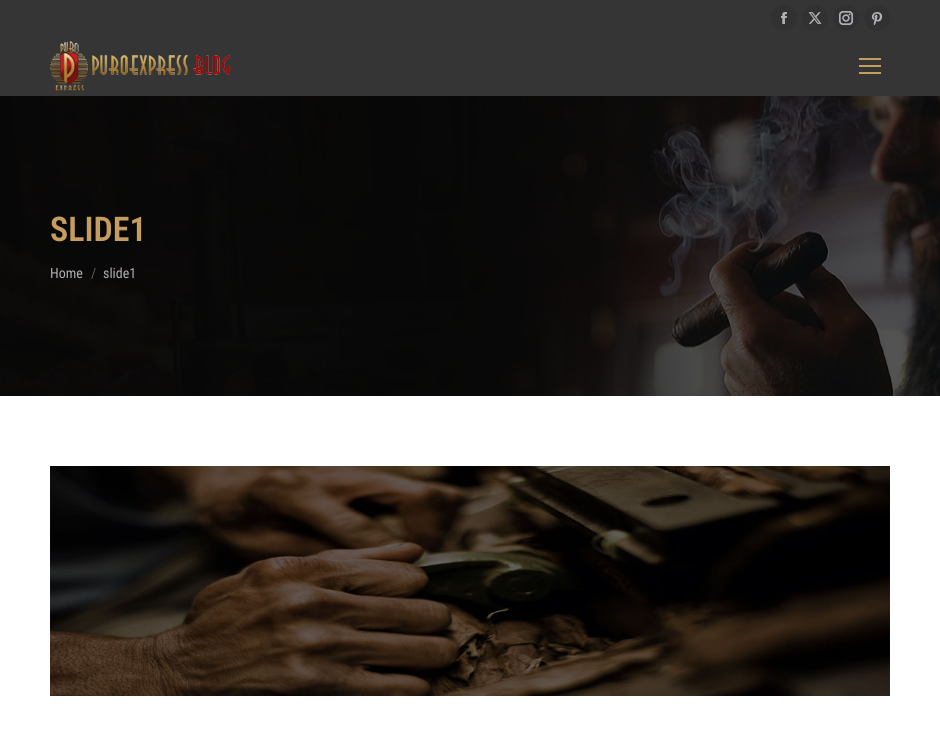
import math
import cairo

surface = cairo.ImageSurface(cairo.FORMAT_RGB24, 940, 754)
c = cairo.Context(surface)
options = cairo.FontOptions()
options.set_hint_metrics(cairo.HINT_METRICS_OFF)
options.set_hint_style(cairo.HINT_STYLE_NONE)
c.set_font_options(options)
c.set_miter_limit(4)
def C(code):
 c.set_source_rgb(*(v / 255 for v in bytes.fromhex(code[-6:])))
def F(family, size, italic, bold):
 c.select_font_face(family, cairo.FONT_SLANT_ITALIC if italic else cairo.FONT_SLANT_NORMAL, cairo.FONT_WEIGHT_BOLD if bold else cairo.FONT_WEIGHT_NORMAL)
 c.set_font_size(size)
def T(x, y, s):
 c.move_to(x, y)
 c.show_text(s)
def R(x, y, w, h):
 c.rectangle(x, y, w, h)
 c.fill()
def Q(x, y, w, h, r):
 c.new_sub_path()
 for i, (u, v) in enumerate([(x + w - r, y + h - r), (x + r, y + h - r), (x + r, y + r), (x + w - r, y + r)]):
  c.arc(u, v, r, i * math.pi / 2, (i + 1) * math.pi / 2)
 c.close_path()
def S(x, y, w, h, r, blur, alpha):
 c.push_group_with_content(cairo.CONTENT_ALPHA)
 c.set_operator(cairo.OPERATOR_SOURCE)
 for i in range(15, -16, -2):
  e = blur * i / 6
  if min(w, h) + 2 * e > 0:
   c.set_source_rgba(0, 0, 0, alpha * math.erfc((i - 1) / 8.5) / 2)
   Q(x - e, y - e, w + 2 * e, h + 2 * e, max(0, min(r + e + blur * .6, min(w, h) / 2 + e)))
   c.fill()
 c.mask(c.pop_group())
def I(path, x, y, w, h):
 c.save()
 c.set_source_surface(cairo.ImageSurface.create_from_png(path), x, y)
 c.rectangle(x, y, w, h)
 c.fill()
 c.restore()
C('ffffff')
c.paint()
I('6.png',0,96,940,300)
C('000000')
S(-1,-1,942,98,0,7.5,.07)
C('353535')
R(0,0,940,96)
C('313131')
c.arc(784,18,13,0,2 * math.pi)
c.fill()
I('1.png',781,12,6,12)
c.arc(815,18,13,0,2 * math.pi)
c.fill()
I('2.png',808,12,14,12)
c.arc(846,18,13,0,2 * math.pi)
c.fill()
I('3.png',839,11,14,14)
c.arc(877,18,13,0,2 * math.pi)
c.fill()
I('4.png',871,12,12,13)
I('5.png',50,41,180,50)
C('c59d5f')
R(859,58,22,2)
R(859,65,22,2)
R(859,72,22,2)
F('Roboto Condensed SemiBold',34,0,0)
T(50,241,'SLIDE1')
F('Roboto Condensed',14,0,0)
C('adafb3')
T(50,278,'Home')
C('5b5c5d')
T(91,278,'/')
C('adafb3')
T(103,278,'slide1')
I('7.png',50,466,840,230)
surface.write_to_png('o.png')
